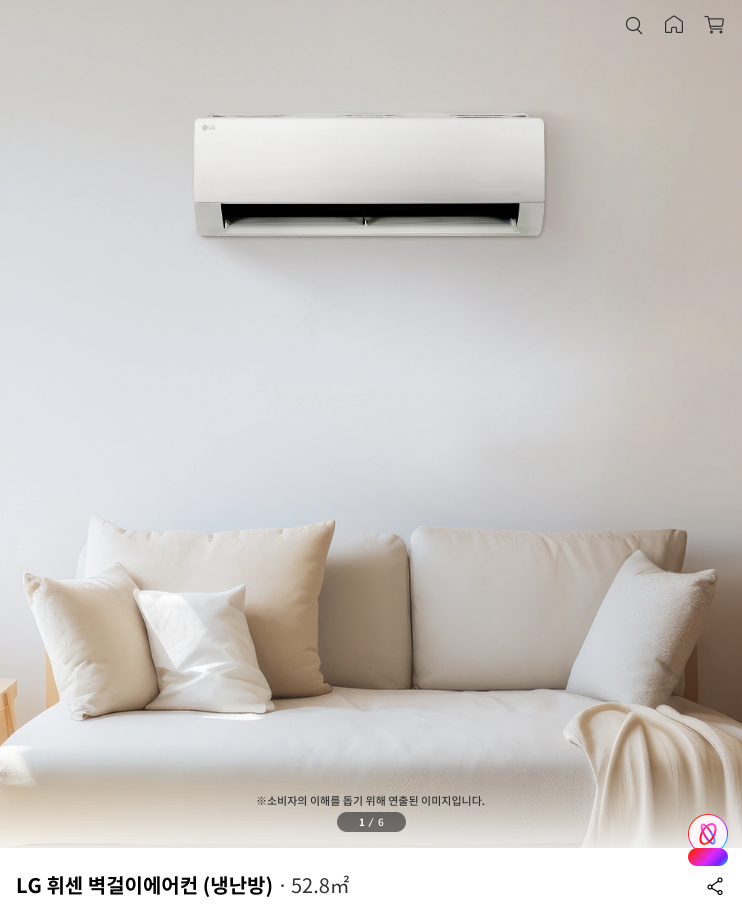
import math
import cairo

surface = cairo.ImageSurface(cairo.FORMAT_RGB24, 742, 906)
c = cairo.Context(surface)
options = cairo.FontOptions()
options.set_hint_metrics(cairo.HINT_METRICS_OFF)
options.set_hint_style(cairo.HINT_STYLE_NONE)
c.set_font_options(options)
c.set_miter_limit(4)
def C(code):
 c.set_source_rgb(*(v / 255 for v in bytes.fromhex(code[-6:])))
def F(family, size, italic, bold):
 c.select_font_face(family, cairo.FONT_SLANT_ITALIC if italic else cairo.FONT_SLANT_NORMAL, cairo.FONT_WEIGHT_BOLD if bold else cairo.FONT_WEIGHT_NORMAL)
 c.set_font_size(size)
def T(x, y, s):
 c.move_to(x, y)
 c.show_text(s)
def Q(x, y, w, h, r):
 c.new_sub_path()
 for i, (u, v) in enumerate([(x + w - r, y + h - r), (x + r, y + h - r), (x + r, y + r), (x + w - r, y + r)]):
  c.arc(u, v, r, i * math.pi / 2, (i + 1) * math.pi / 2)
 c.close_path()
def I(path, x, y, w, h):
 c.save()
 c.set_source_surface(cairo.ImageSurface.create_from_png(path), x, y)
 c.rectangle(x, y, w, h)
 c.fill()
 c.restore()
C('ffffff')
c.paint()
I('3.png',0,0,742,848)
c.arc(633,24,6.5,0,2 * math.pi)
C('333333')
c.set_line_width(1.3)
c.stroke()
c.new_path()
c.move_to(642,34)
c.line_to(637,29)
c.stroke()
I('1.png',665,15,18,18)
I('2.png',704,15,20,19)
F('Noto Sans KR Medium',11,0,0)
T(256,805,'※소비자의 이해를 돕기 위해 연출된 이미지입니다.')
c.set_source_rgba(0,0,0,0.5)
Q(337,812,69,20,10)
c.fill()
F('Noto Sans KR',10,0,1)
C('ffffff')
T(359,826,'1')
c.new_path()
c.move_to(373,817.5)
c.line_to(373.5,818)
c.line_to(369.5,827)
c.line_to(368.5,826.5)
c.close_path()
c.fill()
F('Noto Sans KR Medium',10,0,0)
T(378,826,'6')
F('Noto Sans KR',20,0,1)
C('000000')
T(16,893,'LG 휘센 벽걸이에어컨 (냉난방)')
F('Noto Sans KR',20,0,0)
C('333333')
T(277,893,'·')
T(291,893,'52.8㎡')
I('4.png',707,877,16,19)
gradient = cairo.LinearGradient(688,814,728,854)
gradient.add_color_stop_rgba(0,1,0.141,0.078,1)
gradient.add_color_stop_rgba(.22,1,0.141,0.078,1)
gradient.add_color_stop_rgba(.52,0.871,0.165,0.969,1)
gradient.add_color_stop_rgba(.71,0.471,0.137,1,1)
gradient.add_color_stop_rgba(.84,0.078,0.725,1,1)
gradient.add_color_stop_rgba(1,0.078,0.725,1,1)
c.set_source(gradient)
c.arc(708,834,20,0,2 * math.pi)
c.fill()
c.set_source_rgba(1,1,1,0.95)
c.arc(708,834,19,0,2 * math.pi)
c.fill()
I('5.png',699,823,18,22)
gradient = cairo.LinearGradient(688,837,728,877)
gradient.add_color_stop_rgba(0,1,0.141,0.078,1)
gradient.add_color_stop_rgba(.22,1,0.141,0.078,1)
gradient.add_color_stop_rgba(.52,0.871,0.165,0.969,1)
gradient.add_color_stop_rgba(.71,0.471,0.137,1,1)
gradient.add_color_stop_rgba(.84,0.078,0.725,1,1)
gradient.add_color_stop_rgba(1,0.078,0.725,1,1)
c.set_source(gradient)
Q(688,848,40,18,9)
c.fill()
surface.write_to_png('o.png')
